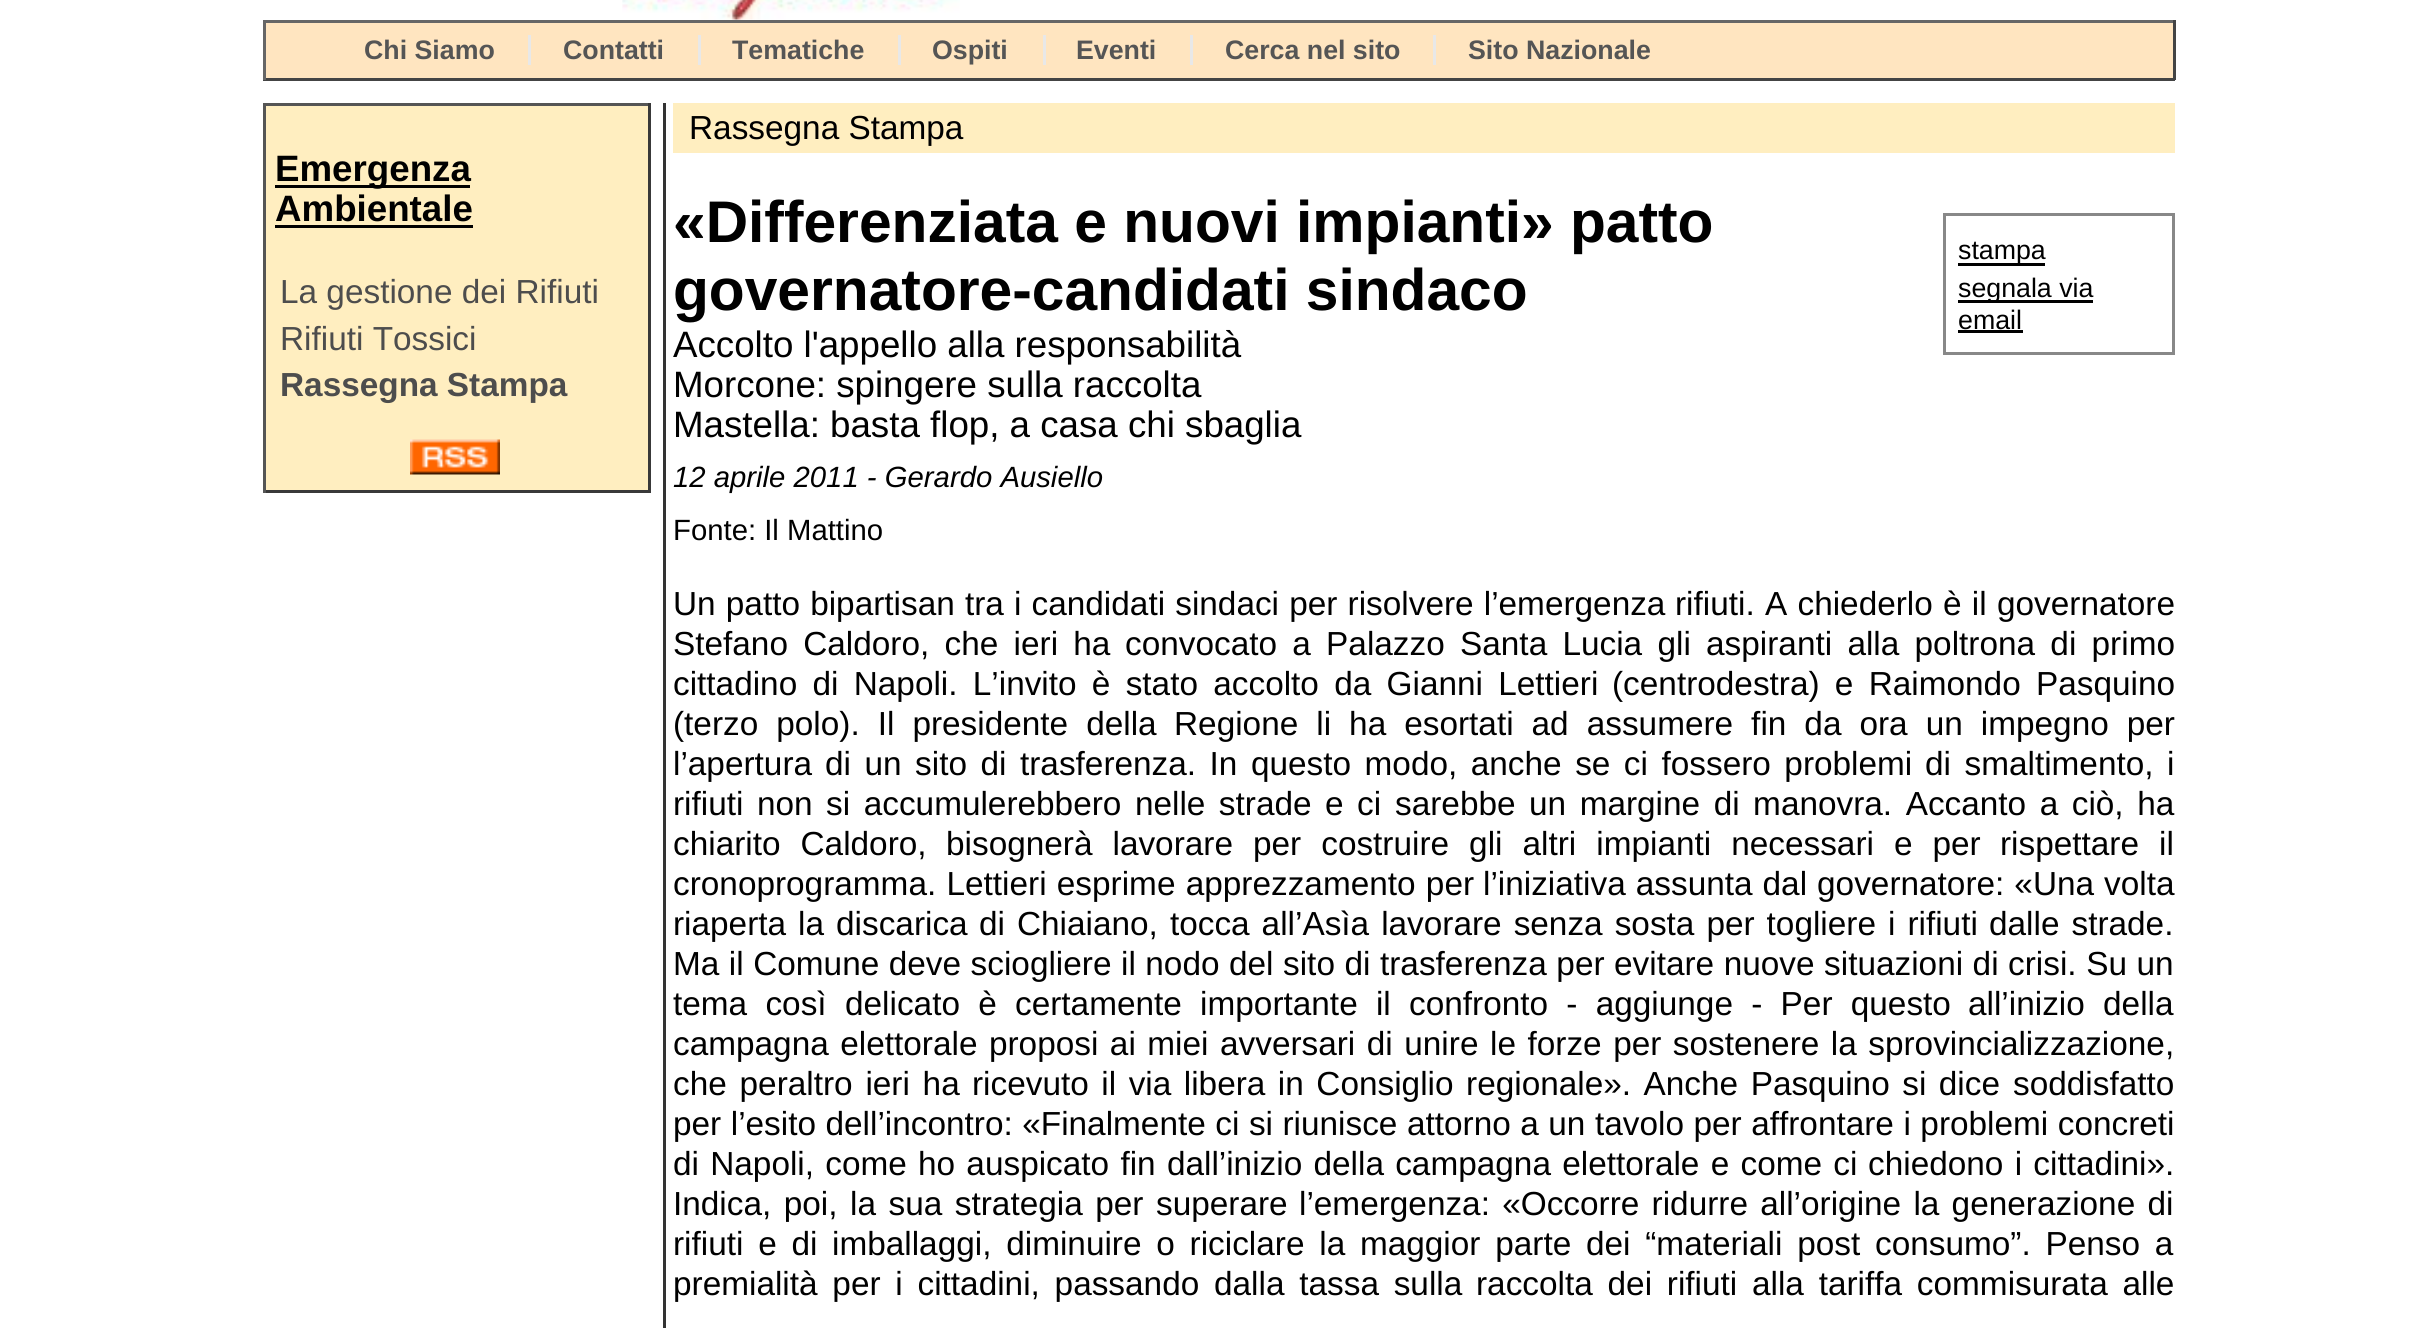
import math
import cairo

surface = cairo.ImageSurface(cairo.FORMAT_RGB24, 2434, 1328)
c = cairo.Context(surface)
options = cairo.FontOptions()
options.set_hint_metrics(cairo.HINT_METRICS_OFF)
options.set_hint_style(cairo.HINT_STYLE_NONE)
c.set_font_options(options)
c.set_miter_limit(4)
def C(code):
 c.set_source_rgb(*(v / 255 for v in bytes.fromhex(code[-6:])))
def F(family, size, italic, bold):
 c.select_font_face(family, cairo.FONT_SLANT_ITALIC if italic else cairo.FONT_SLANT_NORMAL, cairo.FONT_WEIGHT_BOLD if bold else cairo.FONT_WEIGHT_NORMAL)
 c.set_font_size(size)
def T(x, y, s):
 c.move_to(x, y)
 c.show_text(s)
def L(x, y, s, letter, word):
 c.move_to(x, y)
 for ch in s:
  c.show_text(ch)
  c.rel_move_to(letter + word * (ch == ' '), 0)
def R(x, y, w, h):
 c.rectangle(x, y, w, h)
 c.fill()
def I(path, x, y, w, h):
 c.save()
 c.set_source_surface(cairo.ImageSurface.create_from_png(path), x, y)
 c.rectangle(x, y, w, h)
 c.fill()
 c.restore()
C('ffffff')
c.paint()
I('1.png',622,0,338,20)
C('ffe5c0')
R(266,23,1907,55)
C('666666')
R(263,20,1912,3)
C('444444')
R(2173,20,3,60)
R(263,78,1912,3)
C('666666')
R(263,20,3,60)
F('Liberation Sans',26.75,0,1)
C('555555')
T(364,59,'Chi Siamo')
T(563,59,'Contatti')
C('e8e8e8')
R(528,35,3,30)
C('555555')
T(732,59,'Tematiche')
C('e8e8e8')
R(698,35,3,30)
C('555555')
T(932,59,'Ospiti')
C('e8e8e8')
R(898,35,3,30)
C('555555')
T(1076,59,'Eventi')
C('e8e8e8')
R(1043,35,3,30)
C('555555')
T(1225,59,'Cerca nel sito')
C('e8e8e8')
R(1190,35,3,30)
C('555555')
T(1468,59,'Sito Nazionale')
C('e8e8e8')
R(1433,35,3,30)
C('ffeec0')
R(266,106,382,384)
C('555555')
R(263,103,387,3)
C('393939')
R(648,103,3,390)
R(263,490,387,3)
C('555555')
R(263,103,3,390)
C('000000')
R(275,185,195,3)
F('Liberation Sans',36.7,0,1)
T(275,181,'Emergenza')
T(275,221,'Ambientale')
R(275,225,198,3)
F('Liberation Sans',33.35,0,0)
C('4d4d4d')
T(280,303,'La gestione dei Rifiuti')
T(280,350,'Rifiuti Tossici')
F('Liberation Sans',33.35,0,1)
T(280,396,'Rassegna Stampa')
I('2.png',410,439,90,36)
C('333333')
R(663,103,3,1225)
C('ffeec0')
R(673,103,1502,50)
F('Liberation Sans',33.35,0,0)
C('000000')
T(689,139,'Rassegna Stampa')
F('Liberation Sans',58.7,0,1)
T(673,242,'«Differenziata e nuovi impianti» patto')
T(673,310,'governatore-candidati sindaco')
F('Liberation Sans',36.7,0,0)
T(673,357,'Accolto l\'appello alla responsabilità')
T(673,397,'Morcone: spingere sulla raccolta')
T(673,437,'Mastella: basta flop, a casa chi sbaglia')
F('Liberation Sans',29.3,1,0)
T(673,487,'12 aprile 2011 - Gerardo Ausiello')
F('Liberation Sans',29.3,0,0)
T(673,540,'Fonte: Il Mattino')
F('Liberation Sans',33.35,0,0)
L(673,615,'Un patto bipartisan tra i candidati sindaci per risolvere l’emergenza',0,.9)
L(1675,615,'rifiuti. A chiederlo è il governatore',0,1)
L(673,655,'Stefano Caldoro, che ieri ha',0,6)
L(1125,655,'convocato a Palazzo Santa Lucia gli aspiranti alla poltrona di primo',0,6)
L(673,695,'cittadino di Napoli. L’invito è stato accolto da Gianni Lettieri',0,6)
L(1612,695,'(centrodestra) e Raimondo Pasquino',0,6)
L(673,735,'(terzo polo). Il presidente della',0,8.75)
L(1174,735,'Regione li ha esortati ad assumere fin da ora un impegno per',0,8.75)
T(673,775,'l’apertura')
L(825,775,'di un sito di trasferenza. In questo modo, anche se ci fossero problemi',0,4.25)
L(1925,775,'di smaltimento, i',0,4.25)
L(673,815,'rifiuti non si accumulerebbero nelle strade e ci',0,4.25)
L(1395,815,'sarebbe un margine di manovra. Accanto a ciò, ha',0,4.25)
L(673,855,'chiarito Caldoro,',0,10.75)
L(946,855,'bisognerà lavorare per costruire gli altri impianti necessari e per',0,10.75)
L(2000,855,'rispettare il',0,10.75)
L(673,895,'cronoprogramma. Lettieri esprime apprezzamento per',0,1)
L(1483,895,'l’iniziativa assunta dal governatore: «Una volta',0,.75)
L(673,935,'riaperta la discarica',0,2.75)
L(979,935,'di Chiaiano, tocca all’Asìa lavorare senza sosta per togliere i rifiuti',0,2.75)
L(1989,935,'dalle strade.',0,2.75)
L(673,975,'Ma il Comune deve sciogliere il nodo del sito di',0,.25)
L(1380,975,'trasferenza per evitare nuove situazioni di crisi. Su un',0,.25)
L(673,1015,'tema così',0,9)
L(845,1015,'delicato è certamente importante il confronto - aggiunge - Per questo',0,9)
L(1968,1015,'all’inizio della',0,9)
L(673,1055,'campagna elettorale proposi ai miei avversari di unire',0,2.25)
L(1490,1055,'le forze per sostenere la sprovincializzazione,',0,2.25)
L(673,1095,'che peraltro ieri ha',0,3.5)
L(972,1095,'ricevuto il via libera in Consiglio regionale». Anche Pasquino si dice',0,3.25)
T(2013,1095,'soddisfatto')
L(673,1135,'per l’esito dell’incontro: «Finalmente ci si riunisce attorno a un tavolo per affrontare i problemi concreti',0,.25)
L(673,1175,'di Napoli, come',0,2)
L(918,1175,'ho auspicato fin dall’inizio della campagna elettorale e come ci',0,2)
L(1868,1175,'chiedono i cittadini».',0,2)
L(673,1215,'Indica, poi, la sua strategia per superare',0,3.25)
L(1299,1215,'l’emergenza: «Occorre ridurre all’origine la generazione di',0,3)
L(673,1255,'rifiuti e di',0,5.5)
L(832,1255,'imballaggi, diminuire o riciclare la maggior parte dei “materiali post',0,5.5)
L(1875,1255,'consumo”. Penso a',0,5.5)
L(673,1295,'premialità per i cittadini, passando dalla tassa sulla',0,5.5)
L(1476,1295,'raccolta dei rifiuti alla tariffa commisurata alle',0,5.5)
c.rectangle(1944.5,214.5,229,139)
C('888888')
c.set_line_width(3)
c.stroke()
C('000000')
R(1958,263,87,3)
F('Liberation Sans',26.75,0,0)
T(1958,259,'stampa')
R(1958,300,135,3)
T(1958,297,'segnala via')
T(1958,329,'email')
R(1958,330,65,3)
surface.write_to_png('o.png')
